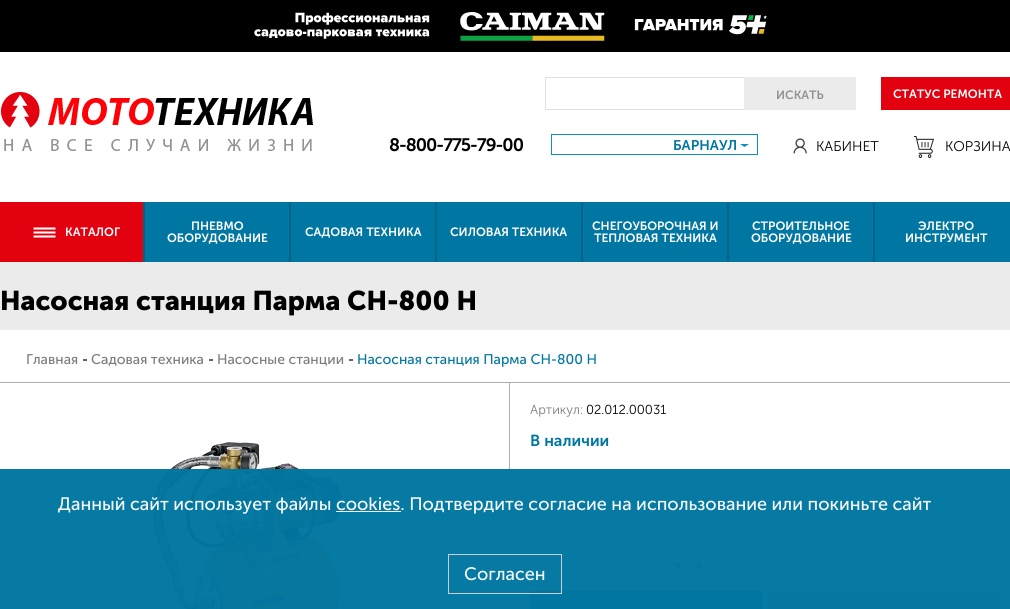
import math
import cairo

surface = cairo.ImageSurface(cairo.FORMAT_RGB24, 1010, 609)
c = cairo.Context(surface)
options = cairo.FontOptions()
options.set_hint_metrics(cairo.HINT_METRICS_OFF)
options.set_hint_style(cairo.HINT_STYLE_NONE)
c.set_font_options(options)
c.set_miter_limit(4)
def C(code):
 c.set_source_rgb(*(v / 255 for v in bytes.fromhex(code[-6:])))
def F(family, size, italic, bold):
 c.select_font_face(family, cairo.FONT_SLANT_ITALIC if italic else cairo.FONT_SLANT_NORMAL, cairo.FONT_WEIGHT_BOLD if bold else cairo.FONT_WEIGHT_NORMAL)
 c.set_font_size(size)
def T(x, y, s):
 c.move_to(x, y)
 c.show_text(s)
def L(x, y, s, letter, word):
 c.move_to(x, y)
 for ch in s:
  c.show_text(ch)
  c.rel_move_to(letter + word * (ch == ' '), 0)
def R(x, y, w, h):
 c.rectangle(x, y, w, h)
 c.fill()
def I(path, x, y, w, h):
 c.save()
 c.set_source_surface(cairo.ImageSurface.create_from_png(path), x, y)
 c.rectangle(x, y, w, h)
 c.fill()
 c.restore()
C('ebebeb')
c.paint()
C('ffffff')
R(0,52,1010,150)
C('000000')
R(0,0,1010,52)
I('1.png',254,12,513,29)
I('2.png',1,92,312,59)
C('e1e1e1')
R(545,77,199,1)
R(545,109,199,1)
R(545,77,1,33)
C('ebebeb')
R(744,77,112,33)
F('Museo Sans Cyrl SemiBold',12,0,0)
C('939393')
T(776,99,'ИСКАТЬ')
C('e3010f')
R(881,77,129,33)
C('ffffff')
T(893,98,'СТАТУС РЕМОНТА')
F('Museo Sans Cyrl SemiBold',18,0,0)
C('000000')
L(389,151,'8-800-775-79-00',-1,0)
c.rectangle(551.5,134.5,206,20)
C('108ec0')
c.set_line_width(1)
c.stroke()
C('108fbf')
c.set_fill_rule(cairo.FILL_RULE_EVEN_ODD)
c.new_path()
c.move_to(740,144)
c.line_to(749,144)
c.line_to(744.5,147)
c.close_path()
c.fill()
F('Museo Sans Cyrl SemiBold',14,0,0)
C('0077a1')
T(673,150,'БАРНАУЛ')
I('3.png',793,138,14,16)
F('Museo Sans Cyrl Light',14,0,0)
C('000000')
T(816,151,'КАБИНЕТ')
I('4.png',914,136,20,22)
T(945,151,'КОРЗИНА')
C('e3010f')
R(0,202,143,60)
I('5.png',33,227,23,11)
F('Museo Sans Cyrl SemiBold',12,0,0)
C('ffffff')
T(65,236,'КАТАЛОГ')
C('00638a')
R(143,202,2,60)
C('0077a2')
R(145,202,144,60)
C('ffffff')
T(191,230,'ПНЕВМО')
T(167,242,'ОБОРУДОВАНИЕ')
C('00638a')
R(289,202,2,60)
C('0077a2')
R(291,202,144,60)
C('ffffff')
T(305,236,'САДОВАЯ ТЕХНИКА')
C('00638a')
R(435,202,2,60)
C('0077a2')
R(437,202,144,60)
C('ffffff')
T(450,236,'СИЛОВАЯ ТЕХНИКА')
C('00638a')
R(581,202,2,60)
C('0077a2')
R(583,202,144,60)
C('ffffff')
T(592,230,'СНЕГОУБОРОЧНАЯ И')
T(594,242,'ТЕПЛОВАЯ ТЕХНИКА')
C('00638a')
R(727,202,2,60)
C('0077a2')
R(729,202,144,60)
C('ffffff')
T(752,230,'СТРОИТЕЛЬНОЕ')
T(751,242,'ОБОРУДОВАНИЕ')
C('00638a')
R(873,202,2,60)
C('0077a2')
R(875,202,135,60)
C('ffffff')
T(918,230,'ЭЛЕКТРО')
T(905,242,'ИНСТРУМЕНТ')
F('Museo Sans Cyrl',27,0,1)
C('000000')
T(0,310,'Насосная станция Парма СН-800 Н')
C('ffffff')
R(0,330,1010,279)
C('acacac')
R(0,382,1010,1)
F('Museo Sans Cyrl',14,0,0)
C('7c7c7c')
T(26,364,'Главная')
C('000000')
T(82,364,'-')
C('7c7c7c')
T(91,364,'Садовая техника')
C('000000')
T(208,364,'-')
C('7c7c7c')
T(217,364,'Насосные станции')
C('000000')
T(348,364,'-')
C('0077a1')
T(357,364,'Насосная станция Парма СН-800 Н')
C('acacac')
R(509,383,1,226)
I('6.png',151,442,191,167)
F('Museo Sans Cyrl Light',13,0,0)
C('7c7c7c')
T(530,414,'Артикул:')
C('000000')
T(586,414,'02.012.00031')
F('Museo Sans Cyrl SemiBold',16,0,0)
C('0077a1')
T(530,446,'В наличии')
C('acacac')
R(705,504,82,1)
c.rectangle(628.5,553.5,39,24)
C('cccccc')
c.stroke()
R(668,553,42,1)
R(688,553,1,25)
R(668,577,21,1)
C('7d7d7d')
c.new_path()
c.move_to(673,563.5)
c.line_to(682.5,563.5)
c.line_to(678,568)
c.close_path()
c.fill()
C('cccccc')
R(709,553,1,25)
R(689,577,21,1)
C('7d7d7d')
c.new_path()
c.move_to(703.5,568)
c.line_to(694,568)
c.line_to(699,563.5)
c.close_path()
c.fill()
C('0077a2')
R(530,591,233,18)
C('acacac')
R(767,591,233,18)
c.set_source_rgba(0,0.467,0.635,0.97)
R(0,469,1010,140)
F('Museo Sans Cyrl',18,0,0)
C('f8fbfc')
T(58,510,'Данный сайт использует файлы cookies. Подтвердите согласие на использование или покиньте сайт')
c.set_source_rgba(1,1,1,0.97)
R(336,511,65,1)
c.rectangle(448.5,554.5,113,39)
c.set_source_rgba(0.82,0.82,0.82,0.97)
c.stroke()
C('f8fbfc')
T(464,580,'Согласен')
surface.write_to_png('o.png')
